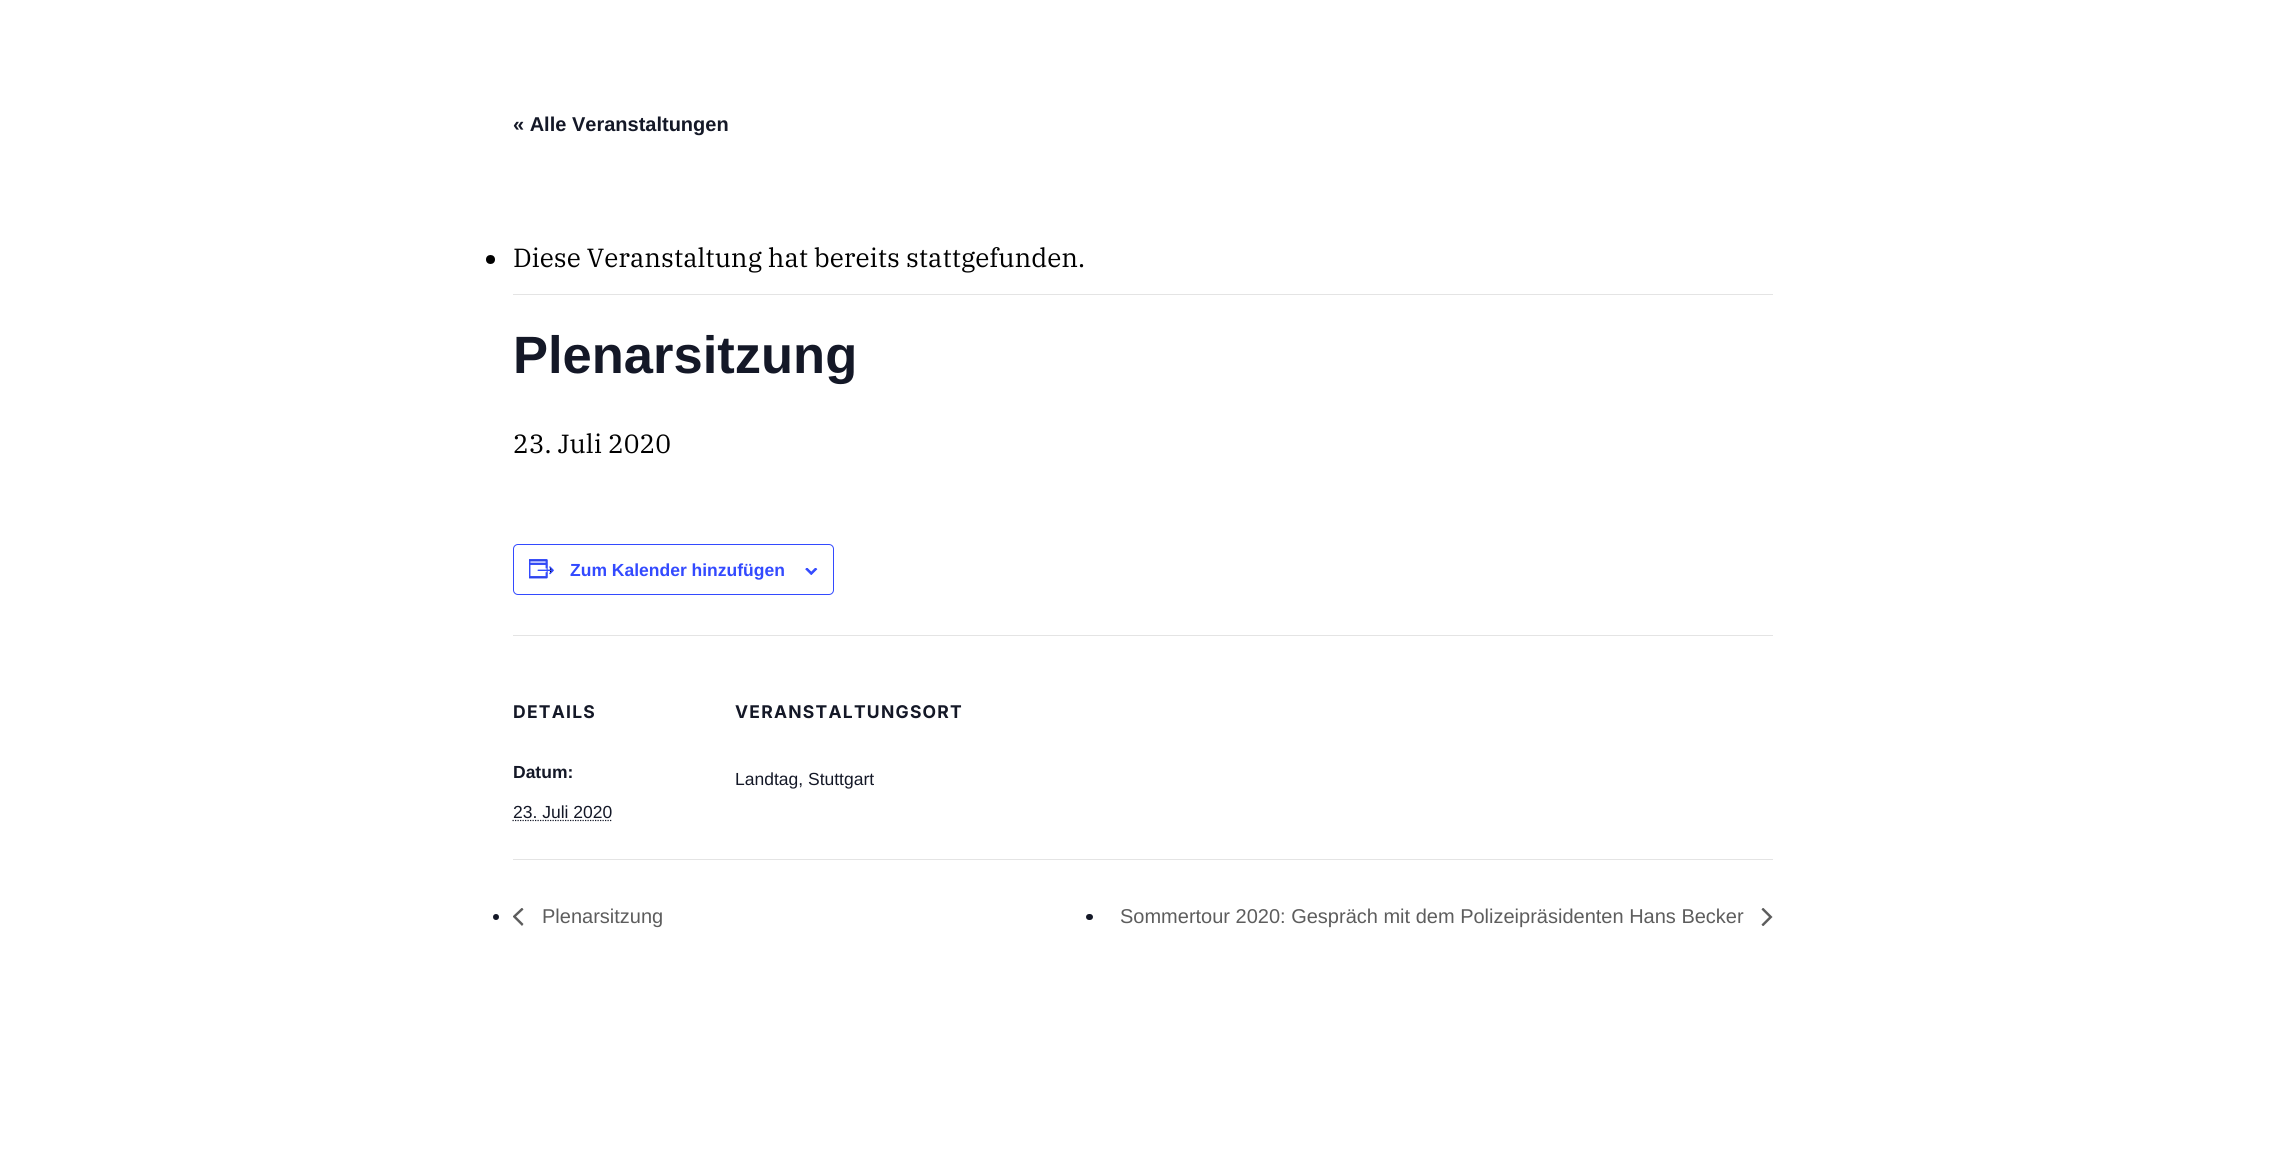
import math
import cairo

surface = cairo.ImageSurface(cairo.FORMAT_RGB24, 2285, 1163)
c = cairo.Context(surface)
options = cairo.FontOptions()
options.set_hint_metrics(cairo.HINT_METRICS_OFF)
options.set_hint_style(cairo.HINT_STYLE_NONE)
c.set_font_options(options)
c.set_miter_limit(4)
def C(code):
 c.set_source_rgb(*(v / 255 for v in bytes.fromhex(code[-6:])))
def F(family, size, italic, bold):
 c.select_font_face(family, cairo.FONT_SLANT_ITALIC if italic else cairo.FONT_SLANT_NORMAL, cairo.FONT_WEIGHT_BOLD if bold else cairo.FONT_WEIGHT_NORMAL)
 c.set_font_size(size)
def T(x, y, s):
 c.move_to(x, y)
 c.show_text(s)
def L(x, y, s, letter, word):
 c.move_to(x, y)
 for ch in s:
  c.show_text(ch)
  c.rel_move_to(letter + word * (ch == ' '), 0)
def R(x, y, w, h):
 c.rectangle(x, y, w, h)
 c.fill()
def Q(x, y, w, h, r):
 c.new_sub_path()
 for i, (u, v) in enumerate([(x + w - r, y + h - r), (x + r, y + h - r), (x + r, y + r), (x + w - r, y + r)]):
  c.arc(u, v, r, i * math.pi / 2, (i + 1) * math.pi / 2)
 c.close_path()
def I(path, x, y, w, h):
 c.save()
 c.set_source_surface(cairo.ImageSurface.create_from_png(path), x, y)
 c.rectangle(x, y, w, h)
 c.fill()
 c.restore()
C('ffffff')
c.paint()
F('Liberation Sans',20,0,1)
C('141827')
T(513,131,'« Alle Veranstaltungen')
C('e4e4e4')
R(513,294,1260,1)
C('000000')
c.new_path()
c.arc(490.5,259.5,4.5,0,2 * math.pi)
c.fill()
F('IBM Plex Serif',26.25,0,0)
T(513,267,'Diese Veranstaltung hat bereits stattgefunden.')
F('Liberation Sans',52.5,0,1)
C('141827')
T(513,373,'Plenarsitzung')
F('IBM Plex Serif',26.25,0,0)
C('000000')
T(513,453,'23. Juli 2020')
Q(513.5,544.5,320,50,4.5)
C('334aff')
c.set_line_width(1)
c.stroke()
I('1.png',529,559,25,20)
F('Liberation Sans',17.5,0,1)
T(570,576,'Zum Kalender hinzufügen')
I('2.png',805,568,13,7)
C('e4e4e4')
R(513,635,1260,1)
F('Inter',17.5,0,1)
C('141827')
L(513,718,'DETAILS',1.25,0)
F('Liberation Sans',17.5,0,1)
T(513,778,'Datum:')
F('Liberation Sans',17.5,0,0)
T(513,818,'23. Juli 2020')
c.new_path()
c.move_to(512.5,820.5)
c.line_to(612,820.5)
c.set_line_width(1.2)
c.set_dash([1.25,1.25])
c.stroke()
F('Inter',17.5,0,1)
L(735,718,'VERANSTALTUNGSORT',1.25,0)
F('Liberation Sans',17.5,0,0)
T(735,785,'Landtag, Stuttgart')
C('e4e4e4')
R(513,859,1260,1)
C('141827')
c.new_path()
c.arc(496,917,3,0,2 * math.pi)
c.fill()
c.save()
c.rectangle(513,908,11,18)
c.clip()
C('5d5d5d')
c.new_path()
c.move_to(523.5,924)
c.line_to(522,926)
c.line_to(512.5,916.5)
c.line_to(522,907.5)
c.line_to(523.5,909.5)
c.line_to(516,916.5)
c.close_path()
c.fill()
c.restore()
F('Liberation Sans',20,0,0)
C('5d5d5d')
T(542,923,'Plenarsitzung')
C('141827')
Q(1086,914,7,6,3)
c.fill()
C('5d5d5d')
T(1120,923,'Sommertour 2020: Gespräch mit dem Polizeipräsidenten Hans Becker')
c.save()
c.rectangle(1761,908,12,18)
c.clip()
c.new_path()
c.move_to(1761.5,909.5)
c.line_to(1763,907.5)
c.line_to(1772.5,917)
c.line_to(1763,926.5)
c.line_to(1761.5,924.5)
c.line_to(1769,917)
c.close_path()
c.fill()
c.restore()
surface.write_to_png('o.png')
